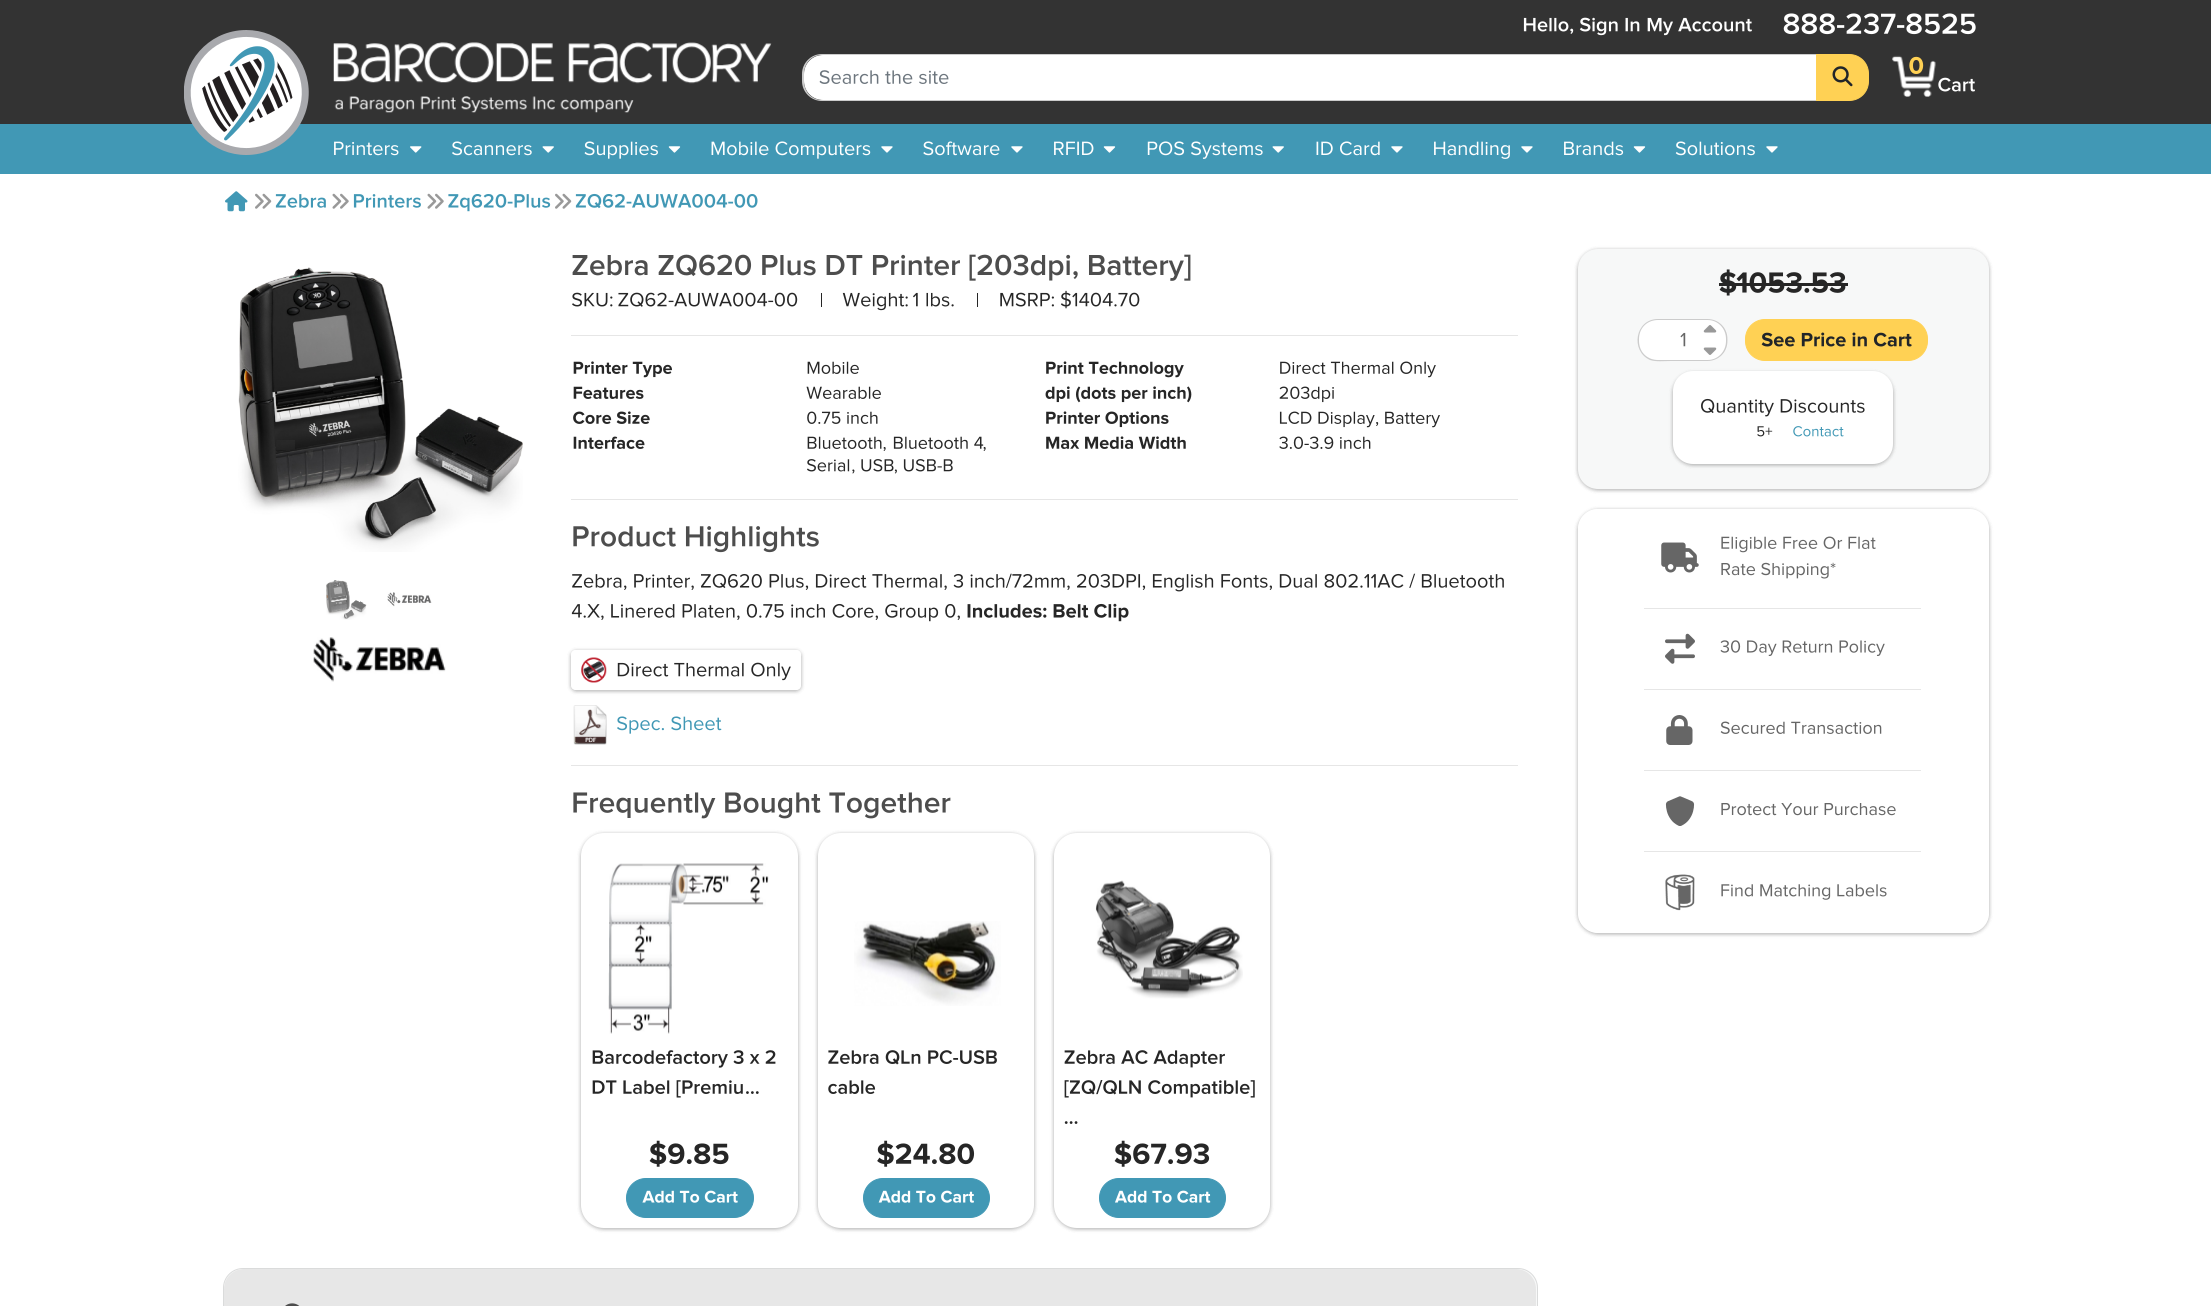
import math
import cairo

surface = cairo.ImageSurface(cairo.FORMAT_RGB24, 2211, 1306)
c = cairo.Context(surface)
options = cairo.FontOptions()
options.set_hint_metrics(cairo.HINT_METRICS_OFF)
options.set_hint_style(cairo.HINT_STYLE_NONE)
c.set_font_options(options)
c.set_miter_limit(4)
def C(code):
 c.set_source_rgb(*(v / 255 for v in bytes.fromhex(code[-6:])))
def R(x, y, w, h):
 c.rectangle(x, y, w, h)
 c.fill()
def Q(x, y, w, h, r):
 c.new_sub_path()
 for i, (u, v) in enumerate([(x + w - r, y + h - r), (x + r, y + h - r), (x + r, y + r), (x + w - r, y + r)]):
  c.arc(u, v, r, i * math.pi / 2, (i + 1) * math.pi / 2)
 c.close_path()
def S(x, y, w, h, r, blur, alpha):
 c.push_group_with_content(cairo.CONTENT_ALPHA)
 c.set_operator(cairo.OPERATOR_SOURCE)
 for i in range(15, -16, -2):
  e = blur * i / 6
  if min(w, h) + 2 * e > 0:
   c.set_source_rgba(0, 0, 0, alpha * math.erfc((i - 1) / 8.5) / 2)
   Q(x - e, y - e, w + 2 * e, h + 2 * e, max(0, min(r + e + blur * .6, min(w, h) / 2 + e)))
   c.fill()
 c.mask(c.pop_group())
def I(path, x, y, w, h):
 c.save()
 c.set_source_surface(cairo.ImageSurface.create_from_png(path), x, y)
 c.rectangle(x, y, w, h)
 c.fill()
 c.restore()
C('ffffff')
c.paint()
C('333333')
R(0,0,2211,124)
C('4198b5')
R(0,124,2211,50)
I('1.png',184,30,125,125)
I('2.png',333,42,439,71)
I('3.png',1523,17,117,19)
I('4.png',1647,17,105,19)
I('5.png',1783,13,193,22)
I('6.png',1892,55,44,42)
I('7.png',1909,56,15,18)
I('8.png',1938,77,37,15)
C('ffffff')
c.new_path()
c.move_to(823,55)
c.line_to(1818,55)
c.line_to(1818,100)
c.line_to(823,100)
c.curve_to(812.5,100,804,91.5,804,81)
c.line_to(804,74)
c.curve_to(804,63.5,812.5,55,823,55)
c.close_path()
c.fill()
C('cccccc')
c.set_fill_rule(cairo.FILL_RULE_EVEN_ODD)
c.new_path()
c.move_to(822,54)
c.line_to(1818,54)
c.line_to(1818,101)
c.line_to(822,101)
c.curve_to(811,101,802,92,802,81)
c.line_to(802,74)
c.curve_to(802,63,811,54,822,54)
c.close_path()
c.move_to(822,55)
c.line_to(1818,55)
c.line_to(1818,100)
c.line_to(822,100)
c.curve_to(812,100,804,92,804,81)
c.line_to(804,74)
c.curve_to(804,63,812,55,822,55)
c.close_path()
c.fill()
C('ffd154')
c.new_path()
c.move_to(1816.5,54.5)
c.line_to(1849,54.5)
c.curve_to(1860,54.5,1868.5,63,1868.5,74)
c.line_to(1868.5,81)
c.curve_to(1868.5,92,1860,100.5,1849,100.5)
c.line_to(1816.5,100.5)
c.close_path()
c.fill_preserve()
c.set_line_width(1)
c.stroke()
I('9.png',1832,66,21,21)
I('10.png',819,70,130,14)
I('11.png',334,141,65,15)
I('12.png',410,146,12,7)
I('13.png',452,141,80,15)
I('14.png',542,146,12,7)
I('15.png',584,141,74,18)
I('16.png',668,146,13,7)
I('17.png',711,141,160,18)
I('18.png',881,146,12,7)
I('19.png',923,141,77,15)
I('18.png',1011,146,12,7)
I('20.png',1054,141,40,14)
I('16.png',1103,146,13,7)
I('21.png',1147,141,116,18)
I('14.png',1272,146,12,7)
I('22.png',1316,141,64,15)
I('18.png',1391,146,12,7)
I('23.png',1434,141,76,18)
I('18.png',1521,146,12,7)
I('24.png',1564,141,60,15)
I('16.png',1633,146,13,7)
I('25.png',1675,141,80,15)
I('18.png',1766,146,12,7)
I('26.png',225,191,23,21)
I('27.png',255,193,17,16)
I('28.png',275,194,51,14)
I('29.png',332,193,17,16)
I('30.png',353,194,68,14)
I('29.png',427,193,17,16)
I('31.png',448,194,103,18)
I('27.png',555,193,17,16)
I('32.png',575,193,183,16)
I('33.png',238,267,285,285)
I('34.png',326,580,41,40)
I('35.png',387,592,45,15)
I('36.png',313,637,133,45)
I('37.png',572,254,619,27)
I('38.png',572,292,41,15)
I('39.png',618,292,180,15)
C('262626')
R(821,293,1,14)
I('40.png',842,292,66,19)
I('41.png',913,292,5,15)
I('42.png',926,292,28,15)
R(977,293,1,14)
I('43.png',1000,292,54,15)
I('44.png',1060,290,80,19)
C('e6e6e6')
R(571,335,947,1)
I('45.png',573,361,99,17)
I('46.png',807,361,52,13)
I('47.png',1046,361,138,17)
I('48.png',1280,361,156,17)
I('49.png',573,386,71,13)
I('50.png',806,386,75,13)
I('51.png',1045,386,147,17)
I('52.png',1279,386,55,17)
I('53.png',573,411,77,13)
I('54.png',807,411,71,13)
I('55.png',1046,411,123,17)
I('56.png',1279,411,96,17)
I('57.png',1376,422,3,4)
I('58.png',1385,411,55,17)
I('59.png',573,436,72,13)
I('60.png',807,436,75,13)
I('61.png',883,447,3,4)
I('62.png',893,436,91,13)
I('61.png',983,447,3,4)
I('63.png',807,459,43,13)
I('64.png',852,469,3,5)
I('65.png',861,459,33,13)
I('66.png',894,469,3,5)
I('67.png',903,459,50,13)
I('68.png',1046,436,140,13)
I('69.png',1279,436,92,13)
R(571,499,947,1)
I('70.png',573,526,246,27)
I('71.png',572,573,932,19)
I('72.png',571,603,389,19)
I('73.png',967,603,162,19)
c.save()
c.new_path()
c.move_to(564,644)
c.line_to(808,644)
c.line_to(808,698)
c.line_to(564,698)
c.close_path()
c.move_to(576,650)
c.line_to(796,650)
c.curve_to(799,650,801,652,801,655)
c.line_to(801,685)
c.curve_to(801,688,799,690,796,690)
c.line_to(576,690)
c.curve_to(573,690,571,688,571,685)
c.line_to(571,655)
c.curve_to(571,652,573,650,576,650)
c.close_path()
c.clip()
C('000000')
S(571,651,230,40,5,2,.24)
c.restore()
c.save()
c.new_path()
c.move_to(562,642)
c.line_to(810,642)
c.line_to(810,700)
c.line_to(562,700)
c.close_path()
c.move_to(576,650)
c.line_to(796,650)
c.curve_to(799,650,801,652,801,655)
c.line_to(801,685)
c.curve_to(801,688,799,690,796,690)
c.line_to(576,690)
c.curve_to(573,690,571,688,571,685)
c.line_to(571,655)
c.curve_to(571,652,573,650,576,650)
c.close_path()
c.clip()
C('000000')
S(571,651,230,40,5,2.5,.12)
c.restore()
I('74.png',581,657,26,26)
I('75.png',617,662,174,19)
I('76.png',573,705,34,40)
I('77.png',617,716,105,18)
R(571,765,947,1)
I('78.png',573,792,378,27)
C('000000')
S(581,834,217,395,23,2,.24)
S(581,834,217,395,23,2.5,.12)
C('ffffff')
Q(581,833,217,395,23)
c.fill()
I('79.png',608,863,161,171)
I('80.png',592,1050,184,18)
I('81.png',592,1080,151,18)
I('82.png',746,1091,13,3)
I('83.png',649,1140,80,27)
C('4198b5')
Q(626.5,1178.5,127,39,19.5)
c.fill_preserve()
c.stroke()
I('84.png',642,1190,96,13)
C('000000')
S(818,834,216,395,23,2,.24)
S(818,834,216,395,23,2.5,.12)
C('ffffff')
Q(818,833,216,395,23)
c.fill()
I('85.png',854,921,147,85)
I('86.png',828,1050,169,15)
I('87.png',828,1080,48,14)
I('88.png',877,1140,98,27)
C('4198b5')
Q(863.5,1178.5,126,39,19.5)
c.fill_preserve()
c.stroke()
I('89.png',878,1190,96,13)
C('000000')
S(1054,834,216,395,23,2,.24)
S(1054,834,216,395,23,2.5,.12)
C('ffffff')
Q(1054,833,216,395,23)
c.fill()
I('90.png',1095,880,148,119)
I('91.png',1064,1050,161,18)
I('92.png',1064,1080,191,18)
I('93.png',1064,1121,14,3)
I('94.png',1114,1140,96,27)
C('4198b5')
Q(1099.5,1178.5,126,39,19.5)
c.fill_preserve()
c.stroke()
I('95.png',1115,1190,96,13)
C('f7f8f8')
Q(223,1268,1315,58,20)
c.fill()
Q(223.5,1268.5,1314,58,19.5)
c.set_source_rgba(0,0,0,0.12)
c.stroke()
C('e7e7e7')
Q(224,1269,1312,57,20)
c.fill()
I('96.png',285,1303,15,3)
C('000000')
S(1578,250,411,240,20,2,.24)
S(1578,250,411,240,20,2.5,.12)
C('f7f8f8')
Q(1578,249,411,240,20)
c.fill()
I('97.png',1719,269,18,27)
I('98.png',1736,272,110,21)
C('262626')
R(1719,283,17,3)
R(1736,283,112,3)
C('ffffff')
c.new_path()
c.move_to(1658,320)
c.line_to(1698,320)
c.line_to(1698,360)
c.line_to(1658,360)
c.curve_to(1647.5,360,1639,351.5,1639,341)
c.line_to(1639,339)
c.curve_to(1639,328.5,1647.5,320,1658,320)
c.close_path()
c.fill()
C('cccccc')
c.new_path()
c.move_to(1658,319)
c.line_to(1698,319)
c.line_to(1698,361)
c.line_to(1671,361)
c.curve_to(1664,361,1656,362,1650,360)
c.curve_to(1630,351,1635,319,1658,319)
c.close_path()
c.move_to(1658,320)
c.line_to(1698,320)
c.line_to(1698,360)
c.line_to(1658,360)
c.curve_to(1647,360,1639,352,1639,341)
c.line_to(1639,339)
c.curve_to(1639,328,1647,320,1658,320)
c.close_path()
c.fill()
I('99.png',1680,332,6,15)
C('ffffff')
c.new_path()
c.move_to(1696,319)
c.line_to(1708,319)
c.curve_to(1719,319,1728,328,1728,339)
c.line_to(1728,340)
c.line_to(1696,340)
c.close_path()
c.fill()
C('cccccc')
c.new_path()
c.move_to(1696,319)
c.line_to(1707.5,319)
c.curve_to(1718.5,319,1727.5,327.5,1727.5,339)
c.line_to(1727.5,340)
c.line_to(1696,340)
c.close_path()
c.move_to(1696,320)
c.line_to(1707.5,320)
c.curve_to(1718,320,1726,328.5,1726,339)
c.line_to(1726,340)
c.line_to(1696,340)
c.close_path()
c.fill()
I('100.png',1703,325,14,8)
C('ffffff')
c.new_path()
c.move_to(1696,340)
c.line_to(1728,340)
c.line_to(1728,341)
c.curve_to(1728,352,1719,361,1708,361)
c.line_to(1696,361)
c.close_path()
c.fill()
C('cccccc')
c.new_path()
c.move_to(1696,340)
c.line_to(1727.5,340)
c.line_to(1727.5,341)
c.curve_to(1727.5,352.5,1718.5,361,1707.5,361)
c.line_to(1696,361)
c.close_path()
c.move_to(1696,340)
c.line_to(1726,340)
c.line_to(1726,341)
c.curve_to(1726,351.5,1718,360,1707.5,360)
c.line_to(1696,360)
c.close_path()
c.fill()
I('101.png',1703,347,14,8)
C('ffd154')
Q(1745.5,319.5,182,41,19.5)
c.fill_preserve()
c.stroke()
I('102.png',1761,332,151,15)
C('000000')
S(1673,373,220,92,20,2,.24)
S(1673,373,220,92,20,2.5,.12)
C('ffffff')
Q(1673,371,220,93,20)
c.fill()
I('103.png',1701,398,164,19)
I('104.png',1757,426,16,11)
I('105.png',1793,426,51,11)
c.save()
c.new_path()
c.move_to(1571,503)
c.line_to(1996,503)
c.line_to(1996,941)
c.line_to(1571,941)
c.close_path()
c.move_to(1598,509)
c.line_to(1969,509)
c.curve_to(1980,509,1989,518,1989,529)
c.line_to(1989,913)
c.curve_to(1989,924,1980,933,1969,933)
c.line_to(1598,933)
c.curve_to(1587,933,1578,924,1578,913)
c.line_to(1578,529)
c.curve_to(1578,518,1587,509,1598,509)
c.close_path()
c.clip()
C('000000')
S(1578,510,411,424,20,2,.24)
c.restore()
c.save()
c.new_path()
c.move_to(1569,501)
c.line_to(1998,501)
c.line_to(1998,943)
c.line_to(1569,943)
c.close_path()
c.move_to(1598,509)
c.line_to(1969,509)
c.curve_to(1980,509,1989,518,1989,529)
c.line_to(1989,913)
c.curve_to(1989,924,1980,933,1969,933)
c.line_to(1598,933)
c.curve_to(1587,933,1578,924,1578,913)
c.line_to(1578,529)
c.curve_to(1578,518,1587,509,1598,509)
c.close_path()
c.clip()
C('000000')
S(1578,510,411,424,20,2.5,.12)
c.restore()
I('106.png',1661,542,38,31)
I('107.png',1721,536,155,17)
I('108.png',1721,562,115,17)
C('e6e6e6')
R(1644,608,277,1)
I('109.png',1665,633,30,31)
I('110.png',1720,640,165,16)
R(1644,689,277,1)
I('111.png',1666,715,27,30)
I('112.png',1720,721,162,13)
R(1644,770,277,1)
I('113.png',1665,796,30,30)
I('114.png',1721,803,175,13)
R(1644,851,277,1)
I('115.png',1665,874,30,37)
I('116.png',1721,884,166,16)
surface.write_to_png('o.png')
